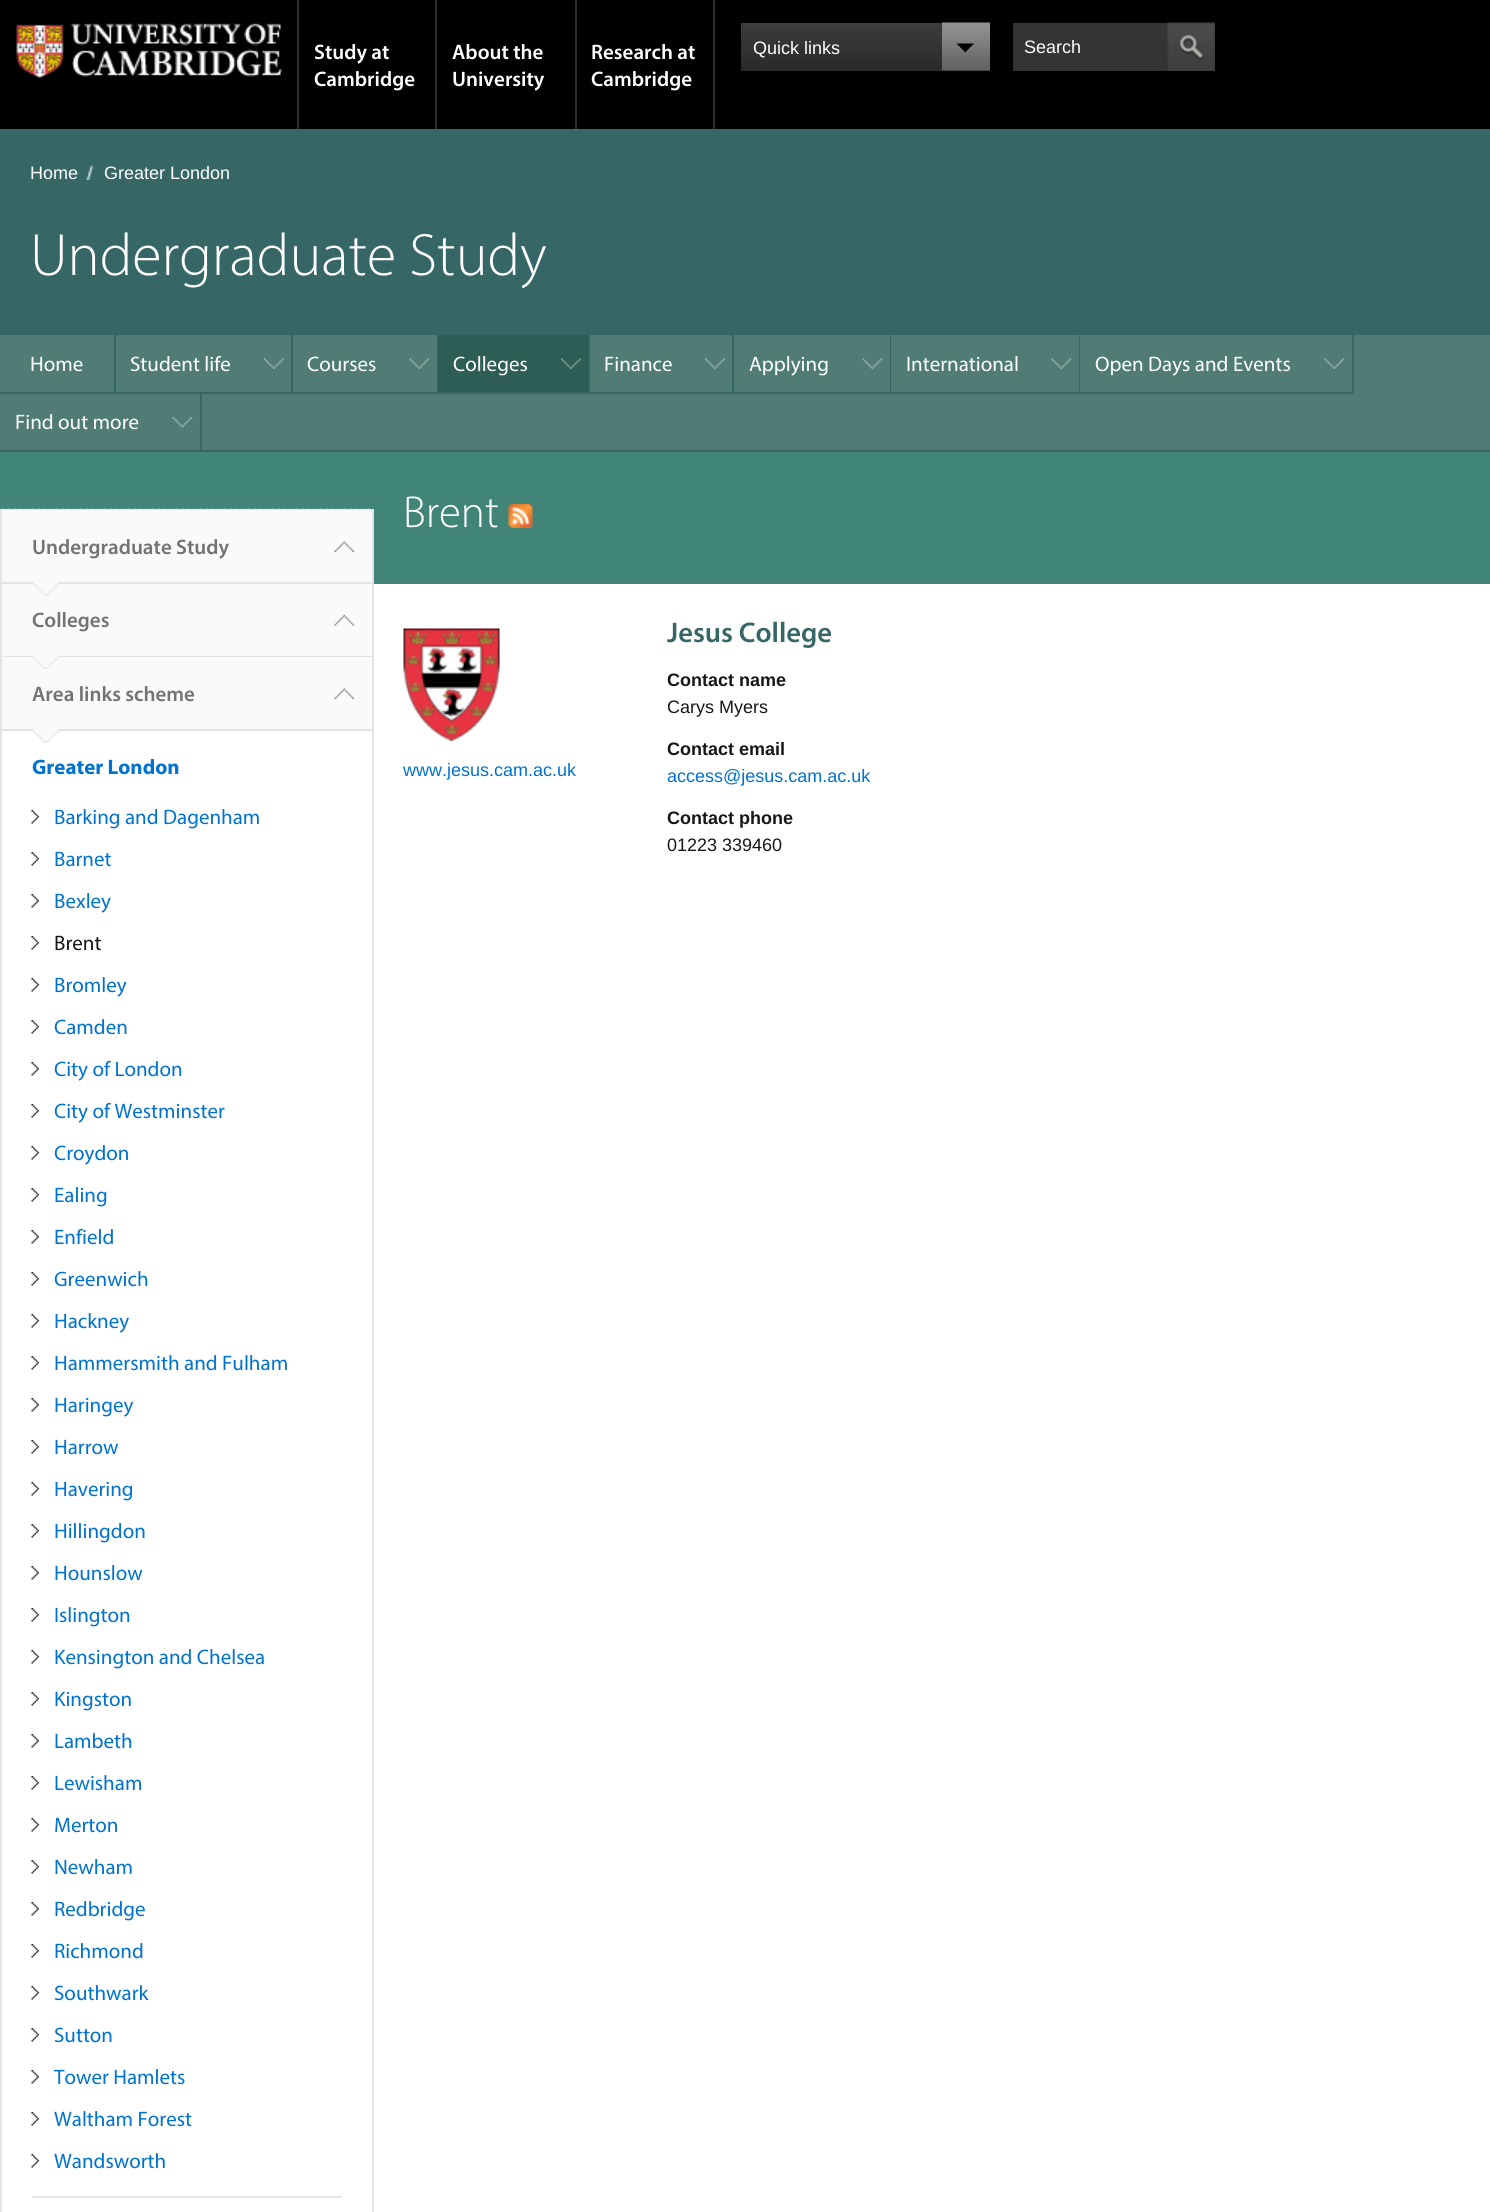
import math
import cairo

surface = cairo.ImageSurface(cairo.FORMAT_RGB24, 1490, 2212)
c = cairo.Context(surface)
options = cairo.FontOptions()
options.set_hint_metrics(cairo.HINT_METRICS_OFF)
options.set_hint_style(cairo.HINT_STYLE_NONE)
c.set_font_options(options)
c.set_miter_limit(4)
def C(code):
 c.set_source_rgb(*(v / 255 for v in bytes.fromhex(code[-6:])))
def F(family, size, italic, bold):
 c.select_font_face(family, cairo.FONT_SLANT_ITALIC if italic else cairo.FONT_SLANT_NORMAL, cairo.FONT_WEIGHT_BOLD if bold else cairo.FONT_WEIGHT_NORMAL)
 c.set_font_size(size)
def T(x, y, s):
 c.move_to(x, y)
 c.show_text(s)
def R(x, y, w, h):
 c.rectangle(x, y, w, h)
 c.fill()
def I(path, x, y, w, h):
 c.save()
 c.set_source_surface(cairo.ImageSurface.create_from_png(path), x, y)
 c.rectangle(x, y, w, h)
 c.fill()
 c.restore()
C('000000')
c.paint()
I('1.png',16,23,266,56)
C('2e2e2e')
R(297,0,2,129)
R(435,0,2,129)
F('Myriad SemiBold',21,0,0)
C('ffffff')
T(314,59,'Study at')
T(314,86,'Cambridge')
C('2e2e2e')
R(575,0,2,129)
C('ffffff')
T(452,59,'About the')
T(452,86,'University')
C('2e2e2e')
R(713,0,2,129)
C('ffffff')
T(591,59,'Research at')
T(591,86,'Cambridge')
gradient = cairo.LinearGradient(866,22,866,71)
gradient.add_color_stop_rgba(0,0.239,0.239,0.239,1)
gradient.add_color_stop_rgba(1,0.161,0.161,0.161,1)
c.set_source(gradient)
R(741,23,249,48)
F('Liberation Sans',18,0,0)
C('ffffff')
T(753,54,'Quick links')
I('2.png',942,22,48,49)
C('343434')
R(1013,23,202,48)
C('ffffff')
T(1024,53,'Search')
I('3.png',1167,22,48,49)
C('366766')
R(0,129,1490,204)
C('ffffff')
T(30,179,'Home')
I('4.png',86,165,8,15)
T(104,179,'Greater London')
F('Myriad Light',60,0,0)
T(30,275,'Undergraduate Study')
C('507c75')
R(202,335,1288,115)
C('366766')
R(1354,333,136,2)
R(202,450,1288,2)
C('507c75')
R(0,335,114,57)
C('366766')
R(0,333,1353,2)
R(114,333,2,60)
F('Myriad',21,0,0)
C('ffffff')
T(30,371,'Home')
C('507c75')
R(116,335,86,57)
I('5.png',264,358,20,11)
C('366766')
R(291,333,2,60)
R(202,392,91,2)
C('ffffff')
T(130,371,'Student life')
I('6.png',409,358,21,11)
C('366766')
R(437,333,1,60)
R(293,392,145,2)
C('ffffff')
T(307,371,'Courses')
C('2d5d54')
R(438,335,150,57)
I('7.png',561,358,20,11)
C('366766')
R(588,333,2,60)
R(438,392,152,2)
C('ffffff')
T(453,371,'Colleges')
I('8.png',705,358,20,11)
C('366766')
R(732,333,2,60)
R(590,392,144,2)
C('ffffff')
T(604,371,'Finance')
I('9.png',862,358,21,11)
C('366766')
R(890,333,1,60)
R(734,392,157,2)
C('ffffff')
T(749,371,'Applying')
I('6.png',1051,358,21,11)
C('366766')
R(1079,333,1,60)
R(891,392,189,2)
C('ffffff')
T(906,371,'International')
I('6.png',1324,358,21,11)
C('366766')
R(1352,333,2,60)
R(1080,392,273,2)
C('ffffff')
T(1095,371,'Open Days and Events')
C('507c75')
R(0,394,200,56)
I('10.png',172,417,21,11)
C('366766')
R(0,392,201,2)
R(200,392,2,60)
R(0,450,201,2)
C('ffffff')
T(15,429,'Find out more')
C('418579')
R(0,452,1490,132)
F('Myriad Light',45,0,0)
C('ffffff')
T(403,527,'Brent')
I('11.png',508,504,25,24)
R(374,584,1116,1628)
I('12.png',1,508,373,1)
C('e4e4e4')
R(0,509,374,1)
R(372,509,2,1703)
R(0,509,2,1703)
C('ffffff')
R(2,731,370,1481)
C('fafafa')
R(2,510,370,72)
I('13.png',334,541,20,11)
C('e4e4e4')
R(2,582,370,2)
F('Myriad SemiBold',21,0,0)
C('737373')
T(32,554,'Undergraduate Study')
C('fafafa')
R(2,584,370,72)
I('14.png',33,582,26,14)
I('15.png',334,615,20,11)
C('e4e4e4')
R(2,656,370,1)
C('737373')
T(32,627,'Colleges')
C('fafafa')
R(2,657,370,72)
I('16.png',31,655,29,15)
I('13.png',334,688,20,11)
C('e4e4e4')
R(2,729,370,2)
C('737373')
T(32,701,'Area links scheme')
I('17.png',33,729,26,14)
C('e4e4e4')
R(32,2196,310,2)
F('Myriad',21,0,1)
C('0072cf')
T(32,774,'Greater London')
I('18.png',31,810,8,14)
F('Myriad',21,0,0)
T(54,824,'Barking and Dagenham')
I('18.png',31,852,8,14)
T(54,866,'Barnet')
I('18.png',31,894,8,14)
T(54,908,'Bexley')
I('18.png',31,936,8,14)
C('171717')
T(54,950,'Brent')
I('18.png',31,978,8,14)
C('0072cf')
T(54,992,'Bromley')
I('18.png',31,1020,8,14)
T(54,1034,'Camden')
I('18.png',31,1062,8,14)
T(54,1076,'City of London')
I('18.png',31,1104,8,14)
T(54,1118,'City of Westminster')
I('18.png',31,1146,8,14)
T(54,1160,'Croydon')
I('18.png',31,1188,8,14)
T(54,1202,'Ealing')
I('18.png',31,1230,8,14)
T(54,1244,'Enfield')
I('18.png',31,1272,8,14)
T(54,1286,'Greenwich')
I('18.png',31,1314,8,14)
T(54,1328,'Hackney')
I('18.png',31,1356,8,14)
T(54,1370,'Hammersmith and Fulham')
I('18.png',31,1398,8,14)
T(54,1412,'Haringey')
I('18.png',31,1440,8,14)
T(54,1454,'Harrow')
I('18.png',31,1482,8,14)
T(54,1496,'Havering')
I('18.png',31,1524,8,14)
T(54,1538,'Hillingdon')
I('18.png',31,1566,8,14)
T(54,1580,'Hounslow')
I('18.png',31,1608,8,14)
T(54,1622,'Islington')
I('18.png',31,1650,8,14)
T(54,1664,'Kensington and Chelsea')
I('18.png',31,1692,8,14)
T(54,1706,'Kingston')
I('18.png',31,1734,8,14)
T(54,1748,'Lambeth')
I('18.png',31,1776,8,14)
T(54,1790,'Lewisham')
I('18.png',31,1818,8,14)
T(54,1832,'Merton')
I('18.png',31,1860,8,14)
T(54,1874,'Newham')
I('18.png',31,1902,8,14)
T(54,1916,'Redbridge')
I('18.png',31,1944,8,14)
T(54,1958,'Richmond')
I('18.png',31,1986,8,14)
T(54,2000,'Southwark')
I('18.png',31,2028,8,14)
T(54,2042,'Sutton')
I('18.png',31,2070,8,14)
T(54,2084,'Tower Hamlets')
I('18.png',31,2112,8,14)
T(54,2126,'Waltham Forest')
I('18.png',31,2154,8,14)
T(54,2168,'Wandsworth')
I('19.png',403,628,97,113)
F('Liberation Sans',18,0,0)
T(403,776,'www.jesus.cam.ac.uk')
F('Myriad SemiBold',28.5,0,0)
C('366766')
T(667,642,'Jesus College')
F('Liberation Sans',18,0,1)
C('171717')
T(667,686,'Contact name')
F('Liberation Sans',18,0,0)
T(667,713,'Carys Myers')
F('Liberation Sans',18,0,1)
T(667,755,'Contact email')
F('Liberation Sans',18,0,0)
C('0072cf')
T(667,782,'access@jesus.cam.ac.uk')
F('Liberation Sans',18,0,1)
C('171717')
T(667,824,'Contact phone')
F('Liberation Sans',18,0,0)
T(667,851,'01223 339460')
surface.write_to_png('o.png')
